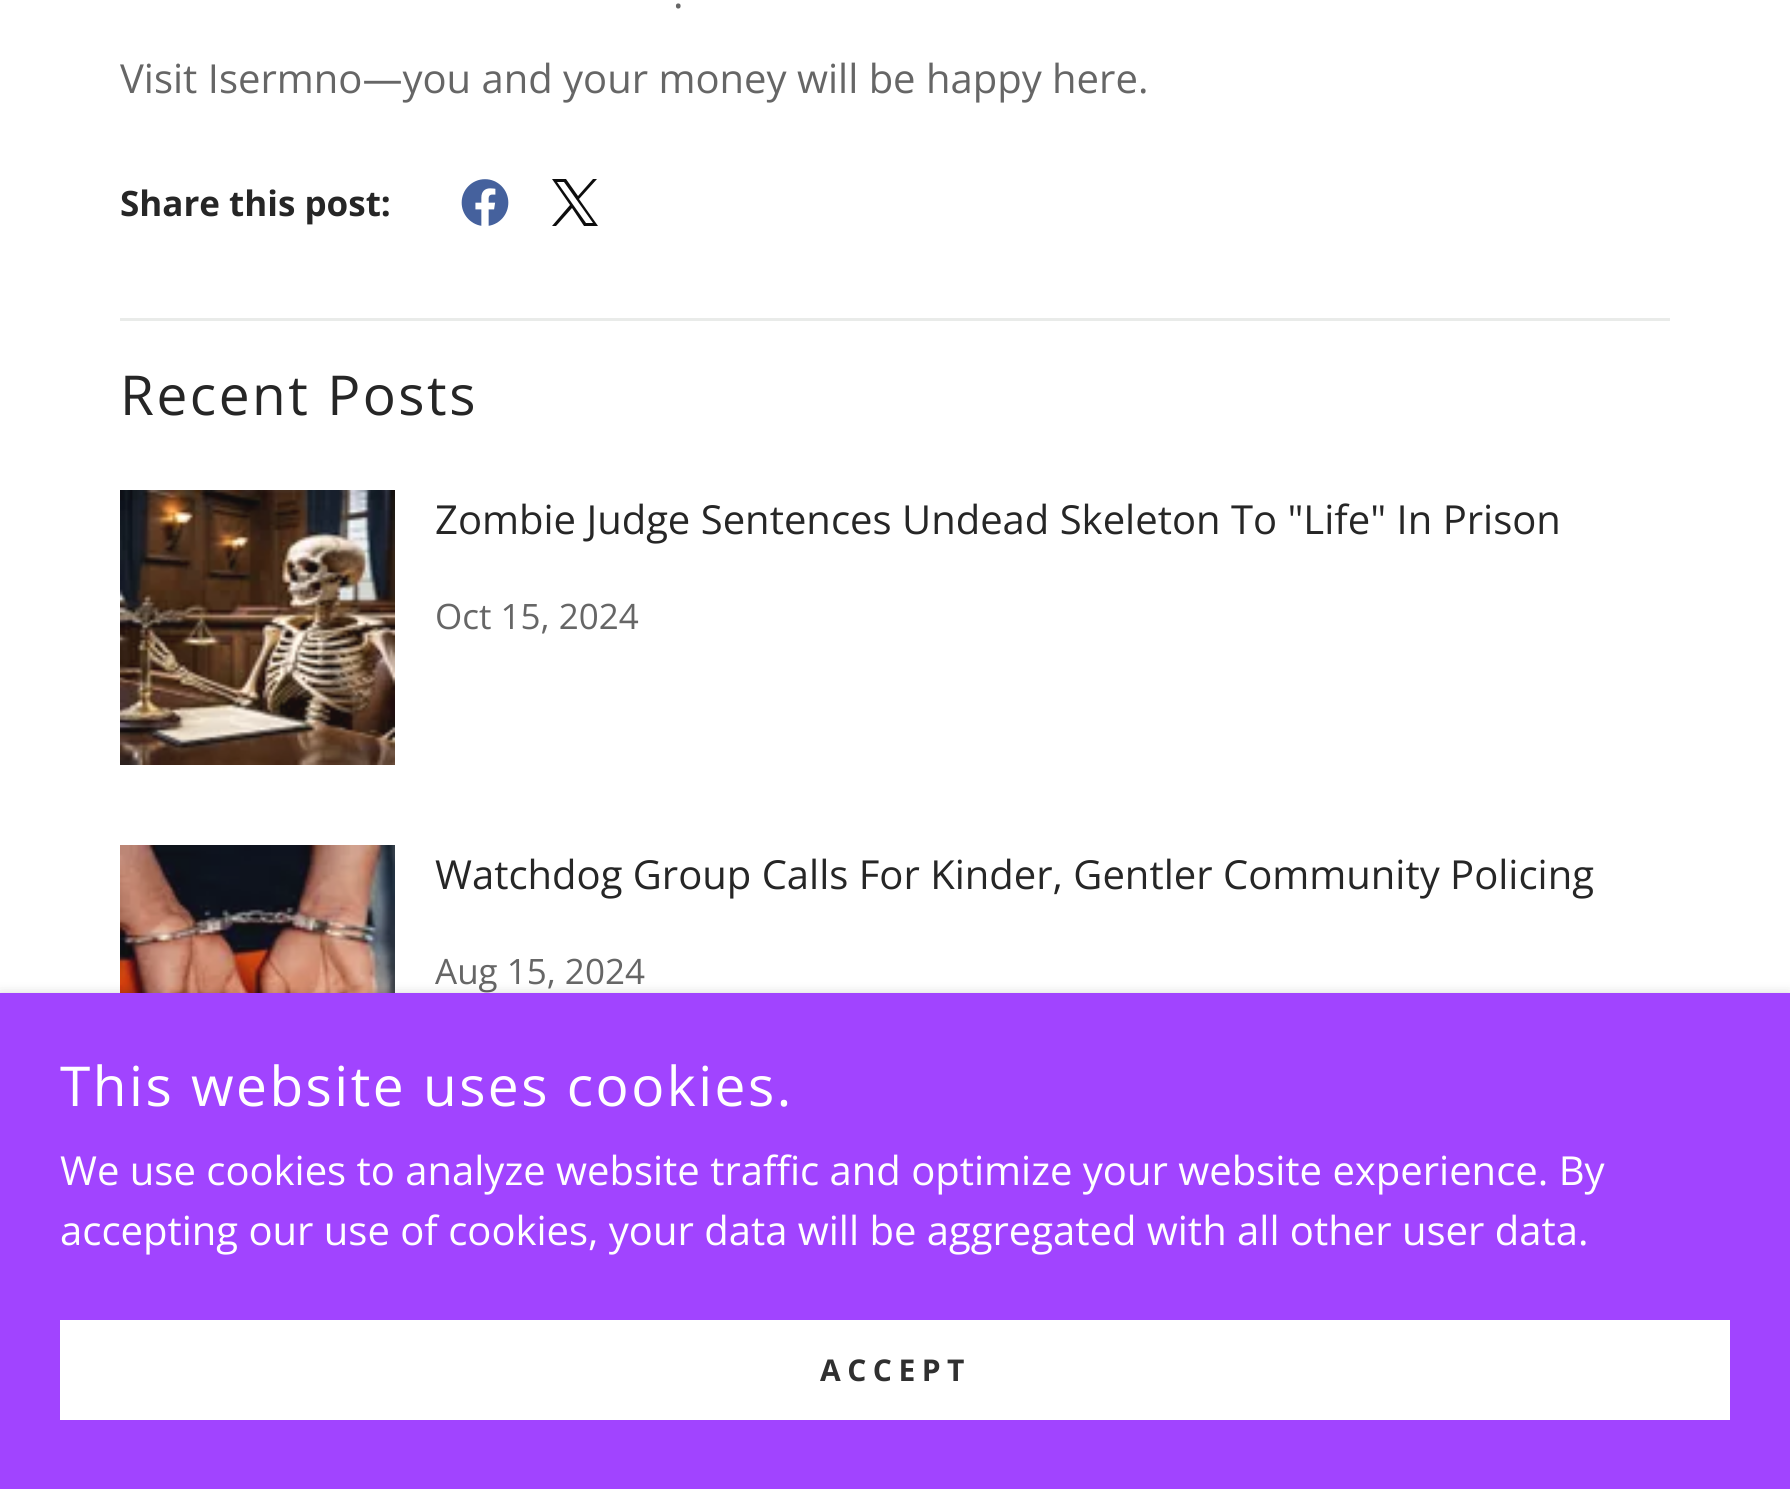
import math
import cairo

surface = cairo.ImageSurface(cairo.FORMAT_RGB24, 1790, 1489)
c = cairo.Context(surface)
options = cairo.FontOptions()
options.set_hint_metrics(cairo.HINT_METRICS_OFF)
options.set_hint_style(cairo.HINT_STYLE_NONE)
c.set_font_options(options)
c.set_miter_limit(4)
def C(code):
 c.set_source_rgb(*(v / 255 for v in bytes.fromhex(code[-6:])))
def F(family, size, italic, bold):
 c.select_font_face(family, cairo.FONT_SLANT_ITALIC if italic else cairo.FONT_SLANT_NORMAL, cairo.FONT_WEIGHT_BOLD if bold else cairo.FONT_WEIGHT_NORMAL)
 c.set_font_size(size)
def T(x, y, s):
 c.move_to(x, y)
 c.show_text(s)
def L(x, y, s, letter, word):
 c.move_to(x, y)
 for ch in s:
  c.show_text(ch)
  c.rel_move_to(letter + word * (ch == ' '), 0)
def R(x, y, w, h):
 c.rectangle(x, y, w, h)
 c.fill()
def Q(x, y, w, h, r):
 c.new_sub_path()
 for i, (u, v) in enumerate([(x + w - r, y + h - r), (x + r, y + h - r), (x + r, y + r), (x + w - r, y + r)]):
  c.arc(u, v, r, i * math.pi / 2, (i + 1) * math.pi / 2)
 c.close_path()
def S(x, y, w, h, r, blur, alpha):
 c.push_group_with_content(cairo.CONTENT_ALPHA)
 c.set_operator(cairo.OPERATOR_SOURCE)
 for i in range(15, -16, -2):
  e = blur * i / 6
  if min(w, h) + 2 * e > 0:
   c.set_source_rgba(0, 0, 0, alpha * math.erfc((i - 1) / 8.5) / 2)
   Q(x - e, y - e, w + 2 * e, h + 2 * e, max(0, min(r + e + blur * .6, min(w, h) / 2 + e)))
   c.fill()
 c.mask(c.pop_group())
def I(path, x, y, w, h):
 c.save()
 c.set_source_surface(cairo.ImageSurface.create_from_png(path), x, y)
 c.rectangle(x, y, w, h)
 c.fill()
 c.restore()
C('ffffff')
c.paint()
C('e9ebe9')
R(120,318,1550,3)
F('Open Sans',40,0,0)
C('666666')
T(673,8,'.')
T(120,93,'Visit Isermno—you and your money will be happy here.')
F('Open Sans',35,0,1)
C('262626')
T(120,216,'Share this post:')
I('1.png',461,179,48,47)
C('0d0d0d')
c.set_fill_rule(cairo.FILL_RULE_EVEN_ODD)
c.new_path()
c.move_to(552,179)
c.line_to(570,205)
c.line_to(552,226)
c.line_to(556,226)
c.line_to(572,208)
c.line_to(584,226)
c.line_to(598,226)
c.line_to(579,199)
c.line_to(597,179)
c.line_to(593,179)
c.line_to(578,196)
c.line_to(566,179)
c.close_path()
c.move_to(557,182)
c.line_to(586,223)
c.line_to(593,223)
c.line_to(564,182)
c.close_path()
c.fill()
F('Open Sans',55,0,0)
C('262626')
L(120,415,'Recent Posts',2.5,0)
I('2.png',120,490,275,275)
F('Open Sans',40,0,0)
T(435,534,'Zombie Judge Sentences Undead Skeleton To "Life" In Prison')
F('Open Sans',35,0,0)
C('666666')
T(435,629,'Oct 15, 2024')
I('3.png',120,845,275,148)
F('Open Sans',40,0,0)
C('262626')
T(435,889,'Watchdog Group Calls For Kinder, Gentler Community Policing')
F('Open Sans',35,0,0)
C('666666')
T(435,984,'Aug 15, 2024')
C('000000')
S(0,998,1790,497,0,7.5,.3)
C('a144ff')
R(0,993,1790,496)
F('Open Sans',55,0,0)
C('ffffff')
L(60,1106,'This website uses cookies.',2.5,0)
F('Open Sans',40,0,0)
T(60,1185,'We use cookies to analyze website traffic and optimize your website experience. By')
T(60,1245,'accepting our use of cookies, your data will be aggregated with all other user data.')
R(60,1320,1670,100)
F('Open Sans',30,0,1)
C('303030')
L(820,1381,'ACCEPT',6.5,0)
surface.write_to_png('o.png')
